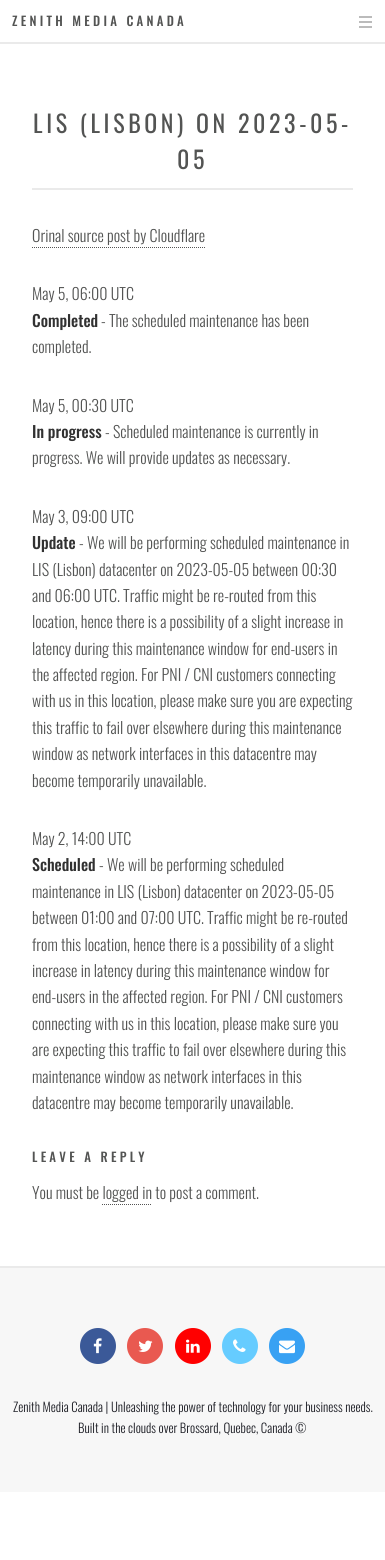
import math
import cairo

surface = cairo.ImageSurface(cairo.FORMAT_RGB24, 385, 1560)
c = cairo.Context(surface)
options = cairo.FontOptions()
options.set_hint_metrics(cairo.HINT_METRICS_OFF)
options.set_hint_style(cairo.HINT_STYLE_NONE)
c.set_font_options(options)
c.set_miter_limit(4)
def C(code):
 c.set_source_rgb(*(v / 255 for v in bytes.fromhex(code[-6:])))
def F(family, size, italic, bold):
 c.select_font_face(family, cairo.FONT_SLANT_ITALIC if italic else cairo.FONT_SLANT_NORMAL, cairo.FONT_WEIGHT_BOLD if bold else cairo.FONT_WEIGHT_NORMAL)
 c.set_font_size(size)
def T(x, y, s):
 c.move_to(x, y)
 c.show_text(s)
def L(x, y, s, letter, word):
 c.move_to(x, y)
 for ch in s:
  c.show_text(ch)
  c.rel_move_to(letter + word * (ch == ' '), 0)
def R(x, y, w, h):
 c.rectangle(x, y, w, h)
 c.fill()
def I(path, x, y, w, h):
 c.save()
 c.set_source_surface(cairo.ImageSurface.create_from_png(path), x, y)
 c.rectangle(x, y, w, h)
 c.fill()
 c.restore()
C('ffffff')
c.paint()
C('eaeaea')
R(0,42,385,2)
F('Oswald Medium',12.8,0,0)
C('535453')
L(12,26,'ZENITH MEDIA CANADA',3.25,0)
I('1.png',359,16,13,12)
C('eaeaea')
R(0,1266,385,2)
R(32,188,321,2)
F('Oswald',24,0,0)
C('535453')
L(33,133,'LIS (LISBON) ON 2023-05-',3.6,0)
L(177,169,'05',3.6,0)
F('Oswald Light',16,0,0)
T(32,242,'Orinal source post by Cloudflare')
c.new_path()
c.move_to(32,247.5)
c.line_to(205,247.5)
C('545454')
c.set_line_width(1)
c.set_dash([1,1])
c.stroke()
C('535453')
T(32,300,'May 5, 06:00 UTC')
F('Oswald Medium',16,0,0)
C('313131')
T(32,327,'Completed')
F('Oswald Light',16,0,0)
C('535453')
T(101,327,'- The scheduled maintenance has been')
T(32,353,'completed.')
T(32,412,'May 5, 00:30 UTC')
F('Oswald Medium',16,0,0)
C('313131')
T(32,438,'In progress')
F('Oswald Light',16,0,0)
C('535453')
T(105,438,'- Scheduled maintenance is currently in')
T(32,464,'progress. We will provide updates as necessary.')
T(32,523,'May 3, 09:00 UTC')
F('Oswald Medium',16,0,0)
C('313131')
T(32,549,'Update')
F('Oswald Light',16,0,0)
C('535453')
T(79,549,'- We will be performing scheduled maintenance in')
T(32,576,'LIS (Lisbon) datacenter on 2023-05-05 between 00:30')
T(32,602,'and 06:00 UTC. Traffic might be re-routed from this')
T(32,628,'location, hence there is a possibility of a slight increase in')
T(32,655,'latency during this maintenance window for end-users in')
T(32,681,'the affected region. For PNI / CNI customers connecting')
T(32,707,'with us in this location, please make sure you are expecting')
T(32,734,'this traffic to fail over elsewhere during this maintenance')
T(32,760,'window as network interfaces in this datacentre may')
T(32,787,'become temporarily unavailable.')
T(32,845,'May 2, 14:00 UTC')
F('Oswald Medium',16,0,0)
C('313131')
T(32,871,'Scheduled')
F('Oswald Light',16,0,0)
C('535453')
T(99,871,'- We will be performing scheduled')
T(32,898,'maintenance in LIS (Lisbon) datacenter on 2023-05-05')
T(32,924,'between 01:00 and 07:00 UTC. Traffic might be re-routed')
T(32,951,'from this location, hence there is a possibility of a slight')
T(32,977,'increase in latency during this maintenance window for')
T(32,1003,'end-users in the affected region. For PNI / CNI customers')
T(32,1030,'connecting with us in this location, please make sure you')
T(32,1056,'are expecting this traffic to fail over elsewhere during this')
T(32,1083,'maintenance window as network interfaces in this')
T(32,1109,'datacentre may become temporarily unavailable.')
F('Oswald Medium',12.8,0,0)
L(32,1162,'LEAVE A REPLY',3.25,0)
F('Oswald Light',16,0,0)
T(32,1199,'You must be logged in to post a comment.')
c.new_path()
c.move_to(102,1204.5)
c.line_to(152,1204.5)
C('545454')
c.stroke()
C('f7f7f7')
R(0,1268,385,224)
C('3b5998')
c.arc(98,1346,18,0,2 * math.pi)
c.fill()
I('2.png',93,1338,9,16)
C('e95950')
c.arc(145,1346,18,0,2 * math.pi)
c.fill()
I('3.png',138,1340,15,12)
C('ff0000')
c.arc(193,1346,18,0,2 * math.pi)
c.fill()
I('4.png',186,1339,14,14)
C('66ccff')
c.arc(240,1346,18,0,2 * math.pi)
c.fill()
I('5.png',233,1339,13,13)
C('38a1f3')
c.arc(287,1346,18,0,2 * math.pi)
c.fill()
I('6.png',279,1340,16,14)
F('Oswald Light',12.8,0,0)
C('1e1f26')
T(13,1412,'Zenith Media Canada | Unleashing the power of technology for your business needs.')
T(78,1433,'Built in the clouds over Brossard, Quebec, Canada ©')
surface.write_to_png('o.png')
